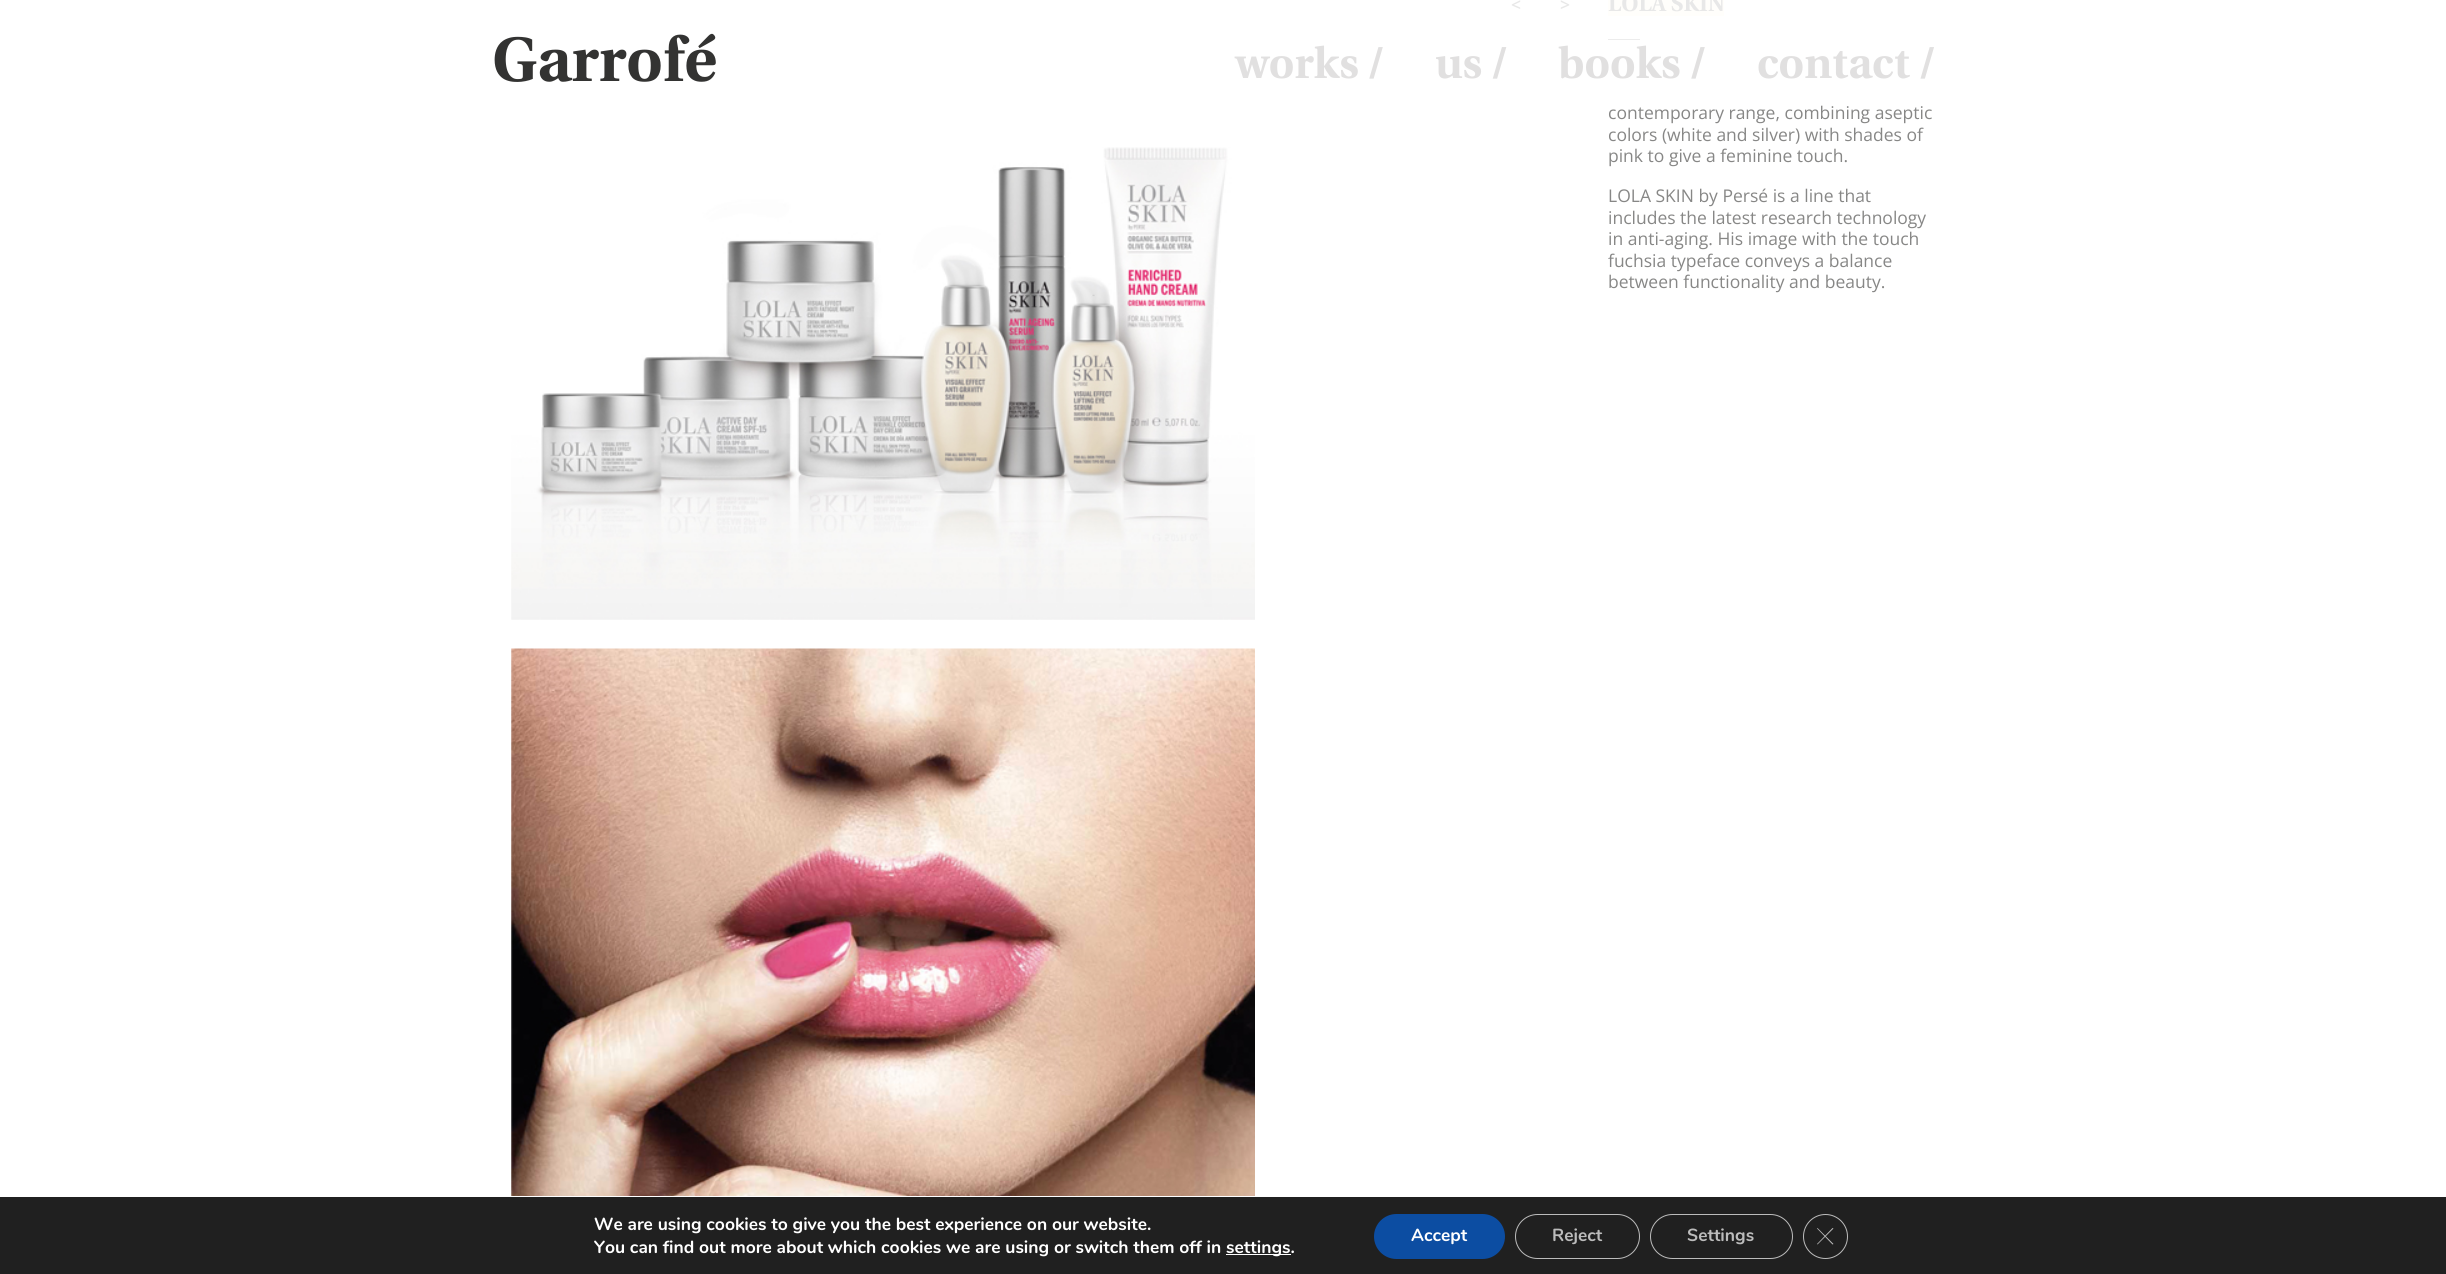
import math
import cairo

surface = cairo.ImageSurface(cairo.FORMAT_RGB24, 2446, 1274)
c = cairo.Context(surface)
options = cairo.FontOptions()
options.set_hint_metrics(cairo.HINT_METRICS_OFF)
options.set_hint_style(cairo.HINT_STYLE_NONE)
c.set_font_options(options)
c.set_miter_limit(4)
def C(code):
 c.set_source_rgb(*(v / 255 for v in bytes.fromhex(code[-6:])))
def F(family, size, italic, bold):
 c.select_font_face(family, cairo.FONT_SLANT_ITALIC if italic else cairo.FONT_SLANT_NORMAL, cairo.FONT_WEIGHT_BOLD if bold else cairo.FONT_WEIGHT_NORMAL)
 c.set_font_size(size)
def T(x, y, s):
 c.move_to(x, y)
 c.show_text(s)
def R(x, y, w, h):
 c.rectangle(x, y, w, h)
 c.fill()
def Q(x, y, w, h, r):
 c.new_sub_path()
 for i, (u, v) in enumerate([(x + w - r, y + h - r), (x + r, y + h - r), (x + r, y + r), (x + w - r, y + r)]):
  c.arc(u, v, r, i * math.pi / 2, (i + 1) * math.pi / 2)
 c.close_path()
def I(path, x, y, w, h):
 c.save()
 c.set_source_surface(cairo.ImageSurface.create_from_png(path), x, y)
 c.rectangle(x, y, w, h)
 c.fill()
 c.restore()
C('ffffff')
c.paint()
F('Open Sans SemiBold',17.5,0,0)
C('e8e8e8')
T(1511,11,'<')
T(1560,11,'>')
I('1.png',511,147,744,473)
I('2.png',511,648,744,548)
C('fffefb')
R(1608,0,116,16)
F('Utopia',22.5,0,1)
C('e8e8e8')
T(1608,11,'LOLA SKIN')
C('ececec')
R(1608,39,32,1)
F('Open Sans',17.5,0,0)
C('878786')
T(1608,119,'contemporary range, combining aseptic')
T(1608,141,'colors (white and silver) with shades of')
T(1608,162,'pink to give a feminine touch.')
T(1608,202,'LOLA SKIN by Persé is a line that')
T(1608,224,'includes the latest research technology')
T(1608,245,'in anti-aging. His image with the touch')
T(1608,267,'fuchsia typeface conveys a balance')
T(1608,288,'between functionality and beauty.')
F('Utopia',62.5,0,1)
C('333332')
T(492,81,'Garrofé')
F('Utopia',43.75,0,1)
C('e1e0e0')
T(1235,78,'works /')
T(1435,78,'us /')
T(1558,78,'books /')
T(1757,78,'contact /')
C('202020')
R(0,1197,2446,77)
F('Nunito',17.5,0,1)
C('ffffff')
T(594,1230,'We are using cookies to give you the best experience on our website.')
T(594,1253,'You can find out more about which cookies we are using or switch them off in')
R(1226,1254,65,1)
T(1226,1253,'settings.')
C('0c4da2')
Q(1374,1214,131,45,22.5)
c.fill()
C('ffffff')
T(1411,1241,'Accept')
Q(1515.5,1214.5,124,44,22)
C('bcbcbc')
c.set_line_width(1)
c.stroke()
T(1552,1241,'Reject')
Q(1650.5,1214.5,142,44,22)
c.stroke()
T(1687,1241,'Settings')
c.new_path()
c.arc(1825.5,1236.5,22,0,2 * math.pi)
c.stroke()
c.new_path()
c.move_to(1832.5,1228)
c.line_to(1833.5,1228.5)
c.line_to(1817.5,1244.5)
c.line_to(1817,1244)
c.close_path()
c.fill()
c.new_path()
c.move_to(1817,1228.5)
c.line_to(1817.5,1228)
c.line_to(1833.5,1244)
c.line_to(1832.5,1244.5)
c.close_path()
c.fill()
surface.write_to_png('o.png')
